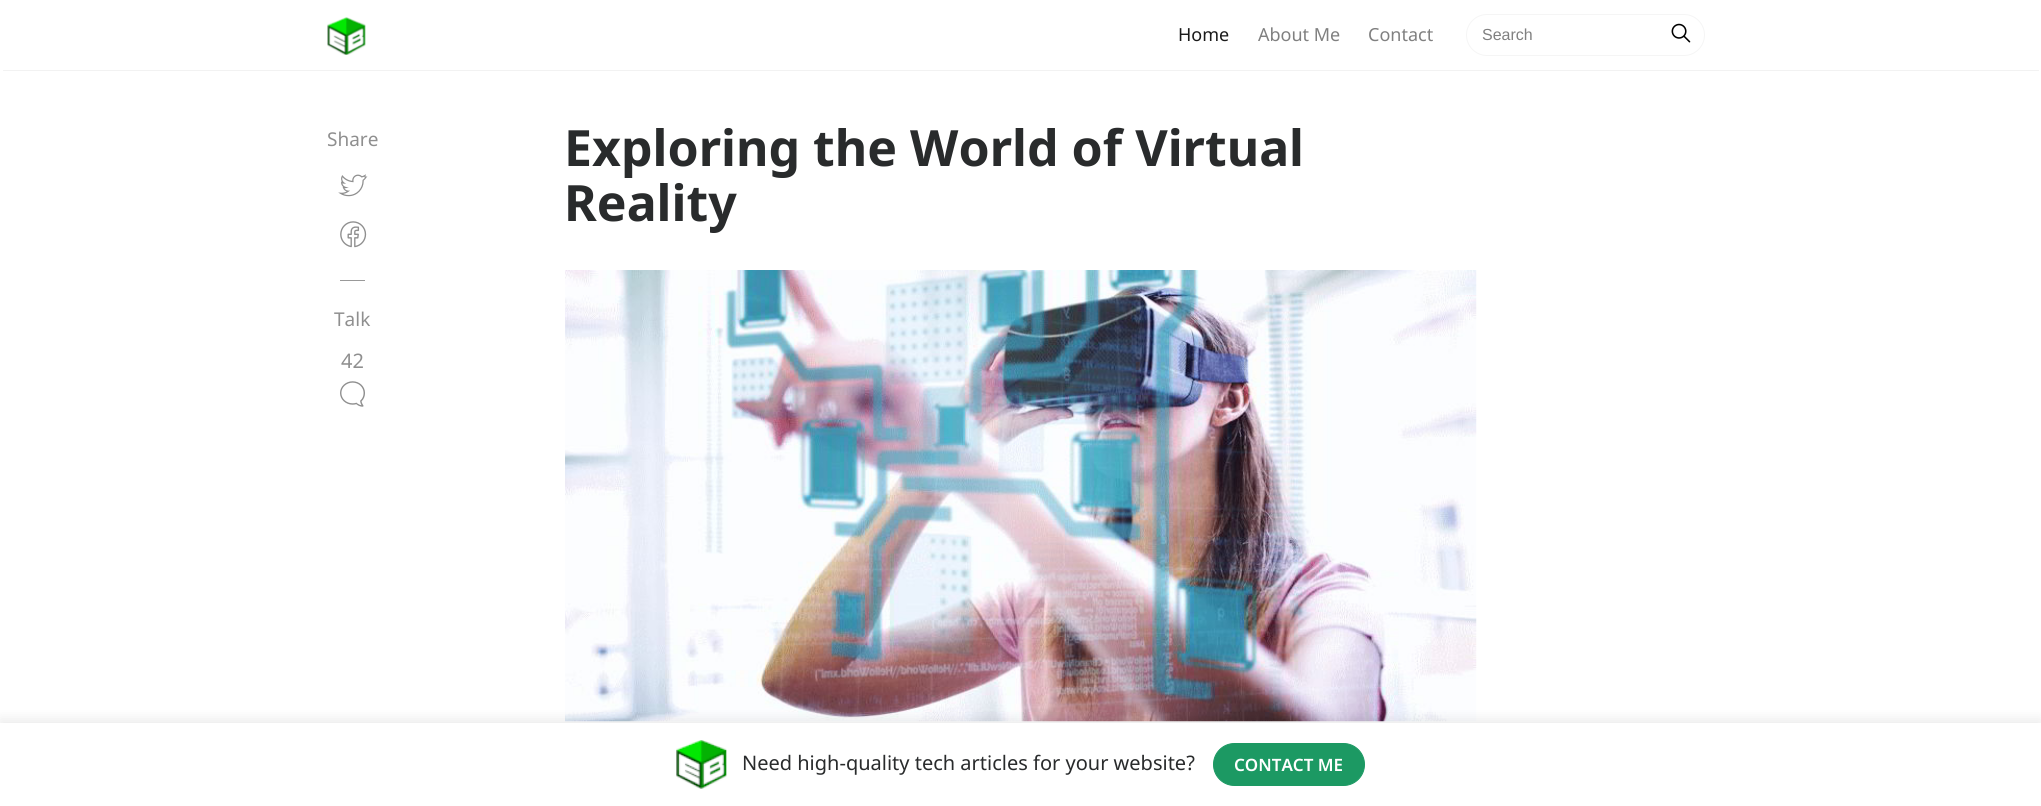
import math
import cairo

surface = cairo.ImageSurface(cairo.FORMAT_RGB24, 2041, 806)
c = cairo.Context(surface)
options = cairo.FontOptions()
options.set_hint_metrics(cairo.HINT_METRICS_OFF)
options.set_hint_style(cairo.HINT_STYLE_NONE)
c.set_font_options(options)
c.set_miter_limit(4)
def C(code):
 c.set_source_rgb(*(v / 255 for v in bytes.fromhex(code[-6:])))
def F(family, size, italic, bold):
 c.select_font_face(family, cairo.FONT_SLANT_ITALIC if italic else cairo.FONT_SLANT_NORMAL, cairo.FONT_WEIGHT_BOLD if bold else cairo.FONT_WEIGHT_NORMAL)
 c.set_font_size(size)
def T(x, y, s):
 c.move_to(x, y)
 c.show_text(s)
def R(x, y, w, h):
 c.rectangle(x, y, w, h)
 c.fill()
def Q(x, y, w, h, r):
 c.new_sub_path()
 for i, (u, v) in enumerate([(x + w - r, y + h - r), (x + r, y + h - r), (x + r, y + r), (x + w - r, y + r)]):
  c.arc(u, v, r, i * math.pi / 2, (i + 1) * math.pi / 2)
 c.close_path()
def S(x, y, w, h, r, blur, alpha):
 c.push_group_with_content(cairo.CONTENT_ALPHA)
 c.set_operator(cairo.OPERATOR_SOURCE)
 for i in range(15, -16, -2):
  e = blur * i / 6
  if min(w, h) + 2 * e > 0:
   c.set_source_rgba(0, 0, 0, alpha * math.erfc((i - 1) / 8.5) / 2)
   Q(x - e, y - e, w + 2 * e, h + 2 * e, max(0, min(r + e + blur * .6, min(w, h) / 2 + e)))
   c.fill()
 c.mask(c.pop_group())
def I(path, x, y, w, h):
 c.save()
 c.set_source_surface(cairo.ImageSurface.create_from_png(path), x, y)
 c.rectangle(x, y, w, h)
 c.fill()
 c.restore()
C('ffffff')
c.paint()
c.save()
c.rectangle(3,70,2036,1)
c.clip()
C('000000')
S(3,5,2036,65,0,1,.15)
c.restore()
I('1.png',327,17,39,38)
F('Noto Sans',18,0,0)
C('1a1a1a')
T(1178,41,'Home')
C('808080')
T(1258,41,'About Me')
T(1368,41,'Contact')
Q(1466.5,14.5,238,41,20.5)
C('f5f5f5')
c.set_line_width(1)
c.stroke()
F('Liberation Sans',16,0,0)
C('808080')
T(1482,40,'Search')
I('2.png',1671,23,20,20)
F('Noto Sans',19,0,0)
C('8f8f8f')
T(327,146,'Share')
I('3.png',338,174,30,23)
I('4.png',340,221,27,27)
C('999999')
R(340,280,25,1)
C('8f8f8f')
T(334,326,'Talk')
F('Noto Sans',20,0,0)
T(341,368,'42')
I('5.png',340,381,25,26)
F('Noto Sans',50,0,1)
C('292b2c')
T(564,166,'Exploring the World of Virtual')
T(564,221,'Reality')
I('6.png',565,270,912,452)
C('000000')
S(0,719,2041,84,0,6,.08)
C('ffffff')
R(0,723,2041,83)
I('7.png',676,740,51,49)
F('Noto Sans',20,0,0)
C('292b2c')
T(742,770,'Need high-quality tech articles for your website?')
C('1c9963')
Q(1213.5,743.5,151,42,21)
c.fill_preserve()
c.stroke()
F('Noto Sans SemiBold',17,0,0)
C('ffffff')
T(1234,771,'CONTACT ME')
surface.write_to_png('o.png')
